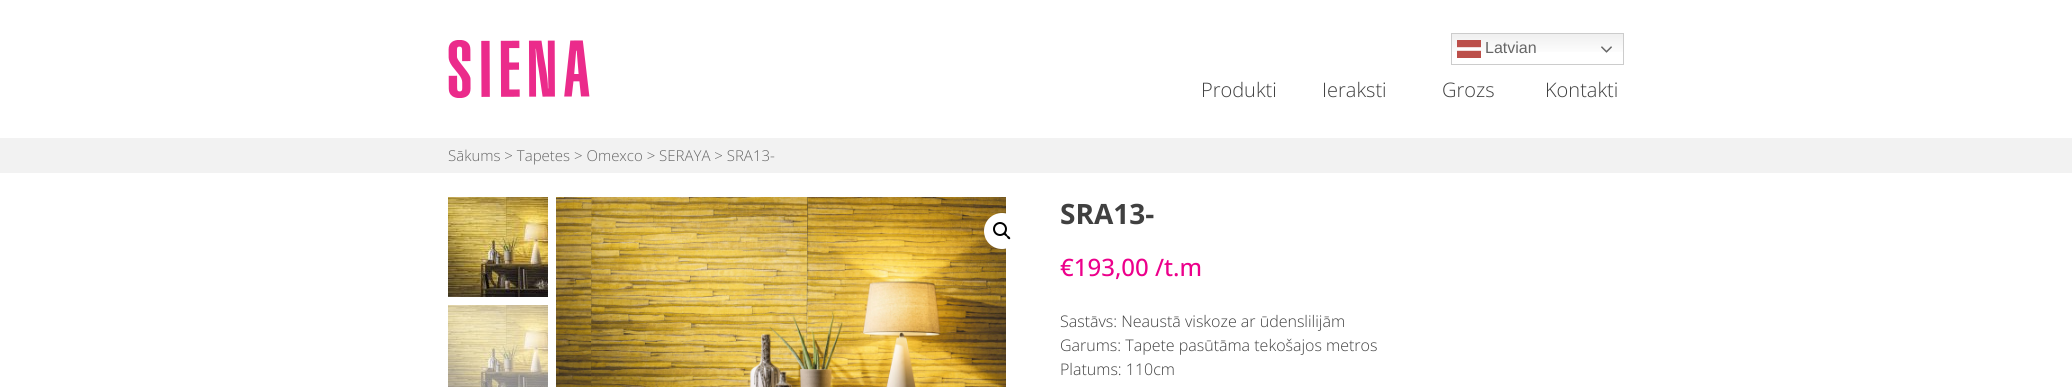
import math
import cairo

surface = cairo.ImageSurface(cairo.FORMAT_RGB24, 2072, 387)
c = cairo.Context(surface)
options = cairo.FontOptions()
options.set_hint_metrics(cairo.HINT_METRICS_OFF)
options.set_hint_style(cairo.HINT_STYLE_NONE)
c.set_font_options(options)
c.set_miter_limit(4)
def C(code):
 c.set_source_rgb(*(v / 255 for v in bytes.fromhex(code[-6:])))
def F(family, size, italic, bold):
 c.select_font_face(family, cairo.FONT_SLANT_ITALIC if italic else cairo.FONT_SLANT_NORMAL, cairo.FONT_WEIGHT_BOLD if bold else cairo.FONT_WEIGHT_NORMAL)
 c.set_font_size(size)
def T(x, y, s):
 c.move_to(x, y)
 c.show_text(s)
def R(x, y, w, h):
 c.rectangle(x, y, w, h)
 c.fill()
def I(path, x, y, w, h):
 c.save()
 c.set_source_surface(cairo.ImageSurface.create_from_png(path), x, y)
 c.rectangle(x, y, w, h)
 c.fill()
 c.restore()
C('ffffff')
c.paint()
I('1.png',448,40,142,58)
gradient = cairo.LinearGradient(1538,33,1538,65)
gradient.add_color_stop_rgba(0,0.937,0.937,0.937,1)
gradient.add_color_stop_rgba(.7,1,1,1,1)
c.set_source(gradient)
R(1452,34,171,18)
c.rectangle(1451.5,33.5,172,31)
C('cccccc')
c.set_line_width(1)
c.stroke()
I('2.png',1457,40,24,18)
F('Liberation Sans',16,0,0)
C('666666')
T(1485,53,'Latvian')
I('3.png',1601,46,11,7)
F('Open Sans Light',20,0,0)
C('404040')
T(1201,97,'Produkti')
T(1322,97,'Ieraksti')
T(1442,97,'Grozs')
T(1545,97,'Kontakti')
C('f2f2f2')
R(0,138,2072,35)
F('Open Sans Light',15,0,0)
C('666666')
T(448,161,'Sākums > Tapetes > Omexco > SERAYA > SRA13-')
I('4.png',448,197,100,100)
I('5.png',448,305,100,82)
I('6.png',556,197,450,190)
C('ffffff')
c.arc(1002,231,18,0,2 * math.pi)
c.fill()
c.arc(1000,229,6,0,2 * math.pi)
C('000000')
c.set_line_width(2)
c.stroke()
c.new_path()
c.move_to(1004,233)
c.curve_to(1005.5,232,1007,234.5,1007.5,235.5)
c.curve_to(1008.5,236,1011,237.5,1010,239)
c.curve_to(1008.5,240,1007,237.5,1006.5,236.5)
c.curve_to(1005.5,236,1003,234.5,1004,233)
c.close_path()
c.fill()
F('Open Sans',28,0,1)
C('404040')
T(1060,224,'SRA13-')
F('Open Sans Medium',24,0,0)
C('ec008b')
T(1060,276,'€193,00 /t.m')
F('Open Sans Light',16,0,0)
C('404040')
T(1060,327,'Sastāvs: Neaustā viskoze ar ūdenslilijām')
T(1060,351,'Garums: Tapete pasūtāma tekošajos metros')
T(1060,375,'Platums: 110cm')
surface.write_to_png('o.png')
